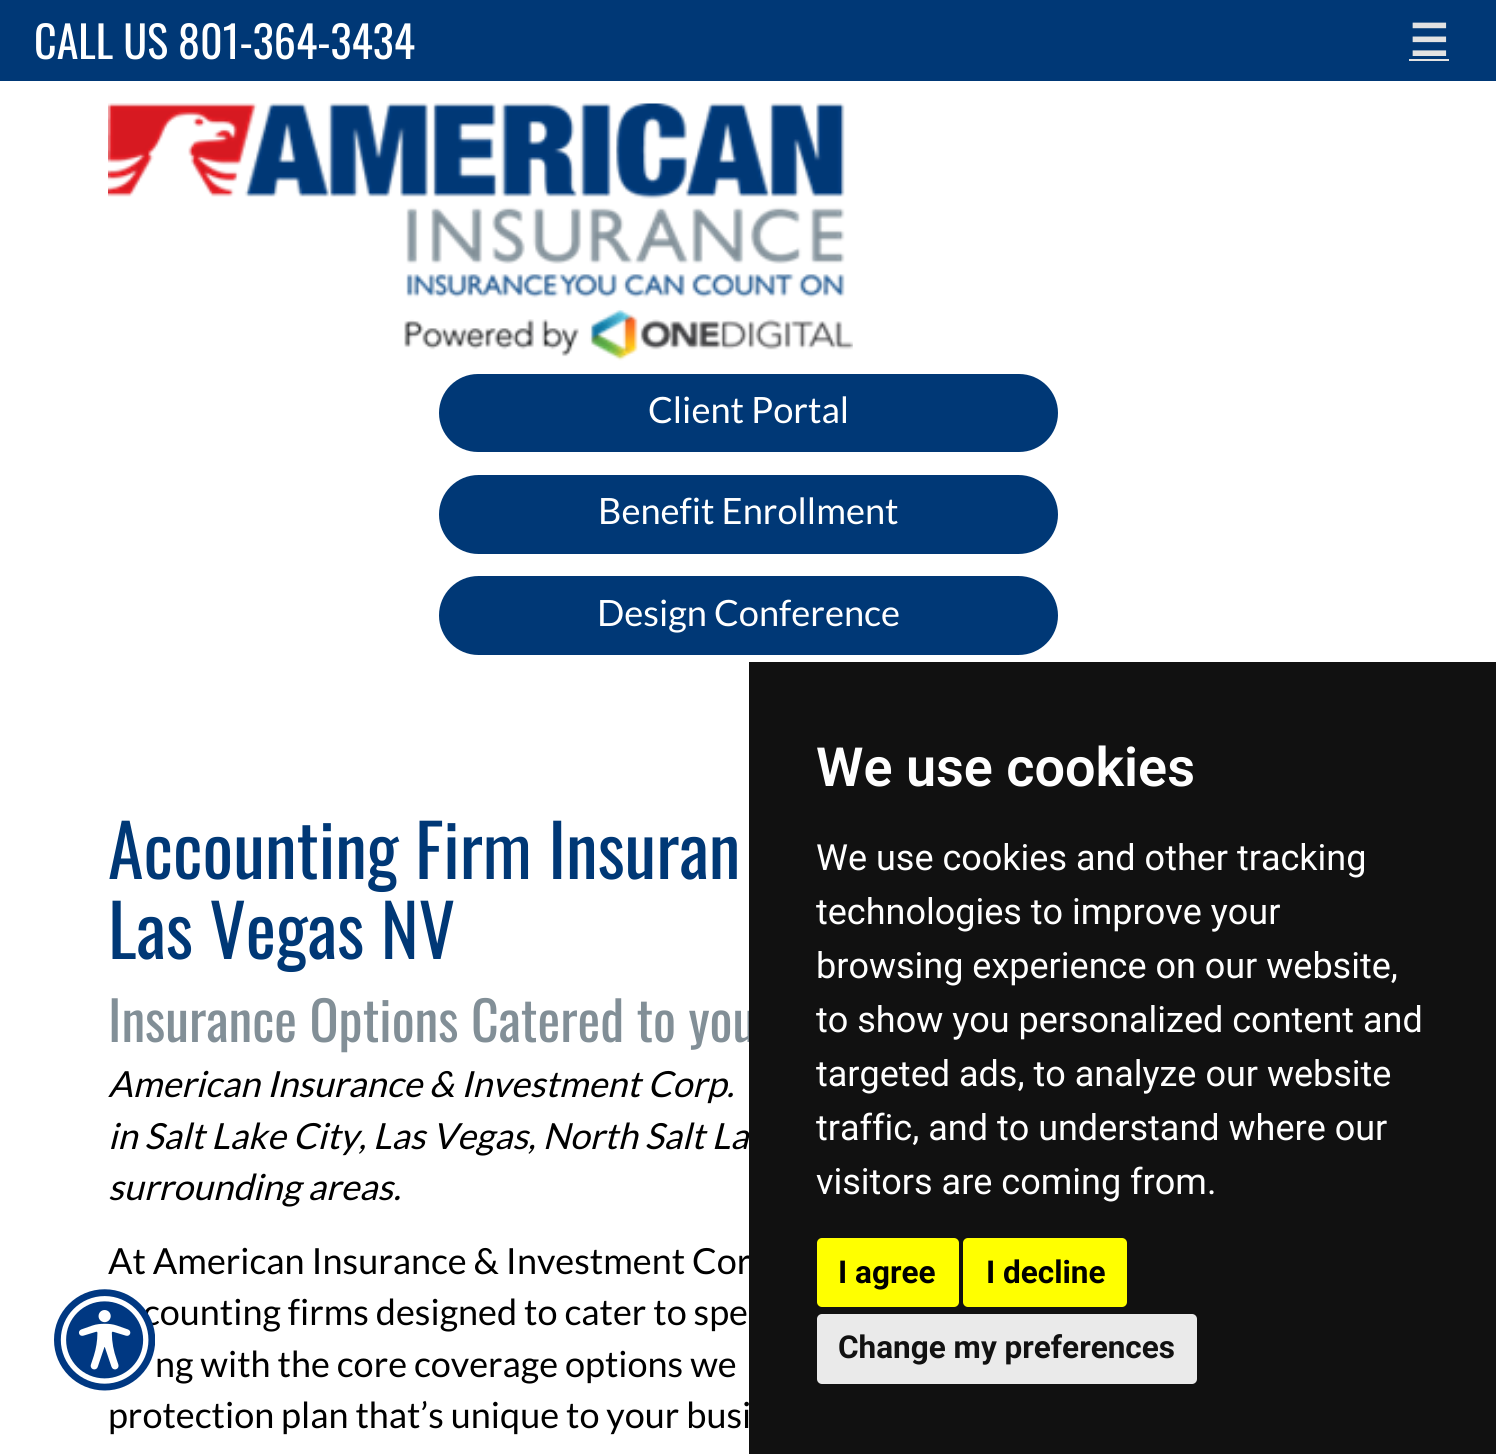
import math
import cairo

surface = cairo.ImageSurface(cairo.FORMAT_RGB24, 1496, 1454)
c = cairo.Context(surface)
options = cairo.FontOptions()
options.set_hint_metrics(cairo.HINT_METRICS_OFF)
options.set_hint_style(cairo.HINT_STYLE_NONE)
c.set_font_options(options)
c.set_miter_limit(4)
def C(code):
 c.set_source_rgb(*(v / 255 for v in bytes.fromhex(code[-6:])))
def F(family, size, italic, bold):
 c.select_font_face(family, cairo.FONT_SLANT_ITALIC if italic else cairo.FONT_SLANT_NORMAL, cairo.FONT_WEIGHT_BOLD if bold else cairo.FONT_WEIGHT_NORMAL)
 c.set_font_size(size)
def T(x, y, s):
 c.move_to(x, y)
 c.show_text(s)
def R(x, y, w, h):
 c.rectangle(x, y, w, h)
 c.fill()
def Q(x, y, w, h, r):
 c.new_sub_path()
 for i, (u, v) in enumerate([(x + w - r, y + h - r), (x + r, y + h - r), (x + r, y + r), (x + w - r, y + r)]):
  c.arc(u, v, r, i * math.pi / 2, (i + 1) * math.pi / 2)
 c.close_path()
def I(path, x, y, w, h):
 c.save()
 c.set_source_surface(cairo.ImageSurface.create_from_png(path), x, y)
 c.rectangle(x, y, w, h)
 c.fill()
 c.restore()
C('ffffff')
c.paint()
C('003876')
R(0,0,1496,81)
F('Oswald',44,0,0)
C('ffffff')
T(34,59,'CALL US 801-364-3434')
F('DejaVu Sans',44,0,1)
C('e2e2e2')
T(1409,56,'☰')
R(1409,59,40,2)
I('1.png',108,103,745,258)
C('003876')
Q(439,374,619,78,39)
c.fill()
F('Lato',36.25,0,0)
C('ffffff')
T(648,423,'Client Portal')
C('003876')
Q(439,475,619,79,39.5)
c.fill()
C('ffffff')
T(598,524,'Benefit Enrollment')
C('003876')
Q(439,576,619,79,39.5)
c.fill()
C('ffffff')
T(597,626,'Design Conference')
F('Oswald',72,0,0)
C('003876')
T(108,879,'Accounting Firm Insuran')
T(108,959,'Las Vegas NV')
F('Oswald',54,0,0)
C('828f97')
T(108,1042,'Insurance Options Catered to you')
F('Lato',36,1,0)
C('000000')
T(108,1097,'American Insurance & Investment Corp.')
T(108,1149,'in Salt Lake City, Las Vegas, North Salt La')
T(108,1200,'surrounding areas.')
F('Lato',36,0,0)
T(108,1274,'At American Insurance & Investment Cor')
T(143,1325,'counting firms designed to cater to spe')
T(155,1377,'ng with the core coverage options we')
T(108,1428,'protection plan that’s unique to your busi')
I('2.png',54,1289,101,102)
C('111111')
R(749,662,747,792)
F('Roboto SemiBold',54,0,0)
C('ffffff')
T(816,786,'We use cookies')
F('Roboto',36,0,0)
T(816,870,'We use cookies and other tracking')
T(816,924,'technologies to improve your')
T(816,978,'browsing experience on our website,')
T(816,1032,'to show you personalized content and')
T(816,1086,'targeted ads, to analyze our website')
T(816,1140,'traffic, and to understand where our')
T(816,1194,'visitors are coming from.')
C('ffff00')
Q(817,1238,142,69,5)
c.fill()
F('Roboto',31.5,0,1)
C('000000')
T(838,1283,'I agree')
C('ffff00')
Q(963,1238,164,69,5)
c.fill()
C('000000')
T(986,1283,'I decline')
C('eaeaea')
Q(817,1314,380,70,5)
c.fill()
C('111111')
T(838,1358,'Change my preferences')
surface.write_to_png('o.png')
